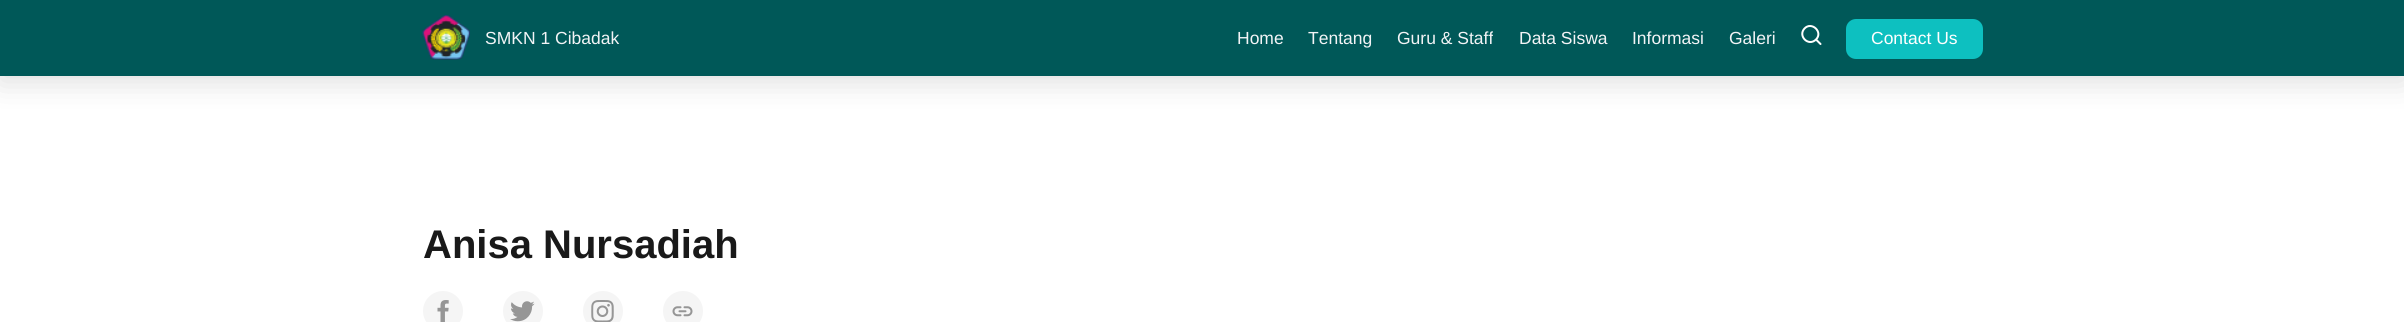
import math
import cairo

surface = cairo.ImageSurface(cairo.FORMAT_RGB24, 2404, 322)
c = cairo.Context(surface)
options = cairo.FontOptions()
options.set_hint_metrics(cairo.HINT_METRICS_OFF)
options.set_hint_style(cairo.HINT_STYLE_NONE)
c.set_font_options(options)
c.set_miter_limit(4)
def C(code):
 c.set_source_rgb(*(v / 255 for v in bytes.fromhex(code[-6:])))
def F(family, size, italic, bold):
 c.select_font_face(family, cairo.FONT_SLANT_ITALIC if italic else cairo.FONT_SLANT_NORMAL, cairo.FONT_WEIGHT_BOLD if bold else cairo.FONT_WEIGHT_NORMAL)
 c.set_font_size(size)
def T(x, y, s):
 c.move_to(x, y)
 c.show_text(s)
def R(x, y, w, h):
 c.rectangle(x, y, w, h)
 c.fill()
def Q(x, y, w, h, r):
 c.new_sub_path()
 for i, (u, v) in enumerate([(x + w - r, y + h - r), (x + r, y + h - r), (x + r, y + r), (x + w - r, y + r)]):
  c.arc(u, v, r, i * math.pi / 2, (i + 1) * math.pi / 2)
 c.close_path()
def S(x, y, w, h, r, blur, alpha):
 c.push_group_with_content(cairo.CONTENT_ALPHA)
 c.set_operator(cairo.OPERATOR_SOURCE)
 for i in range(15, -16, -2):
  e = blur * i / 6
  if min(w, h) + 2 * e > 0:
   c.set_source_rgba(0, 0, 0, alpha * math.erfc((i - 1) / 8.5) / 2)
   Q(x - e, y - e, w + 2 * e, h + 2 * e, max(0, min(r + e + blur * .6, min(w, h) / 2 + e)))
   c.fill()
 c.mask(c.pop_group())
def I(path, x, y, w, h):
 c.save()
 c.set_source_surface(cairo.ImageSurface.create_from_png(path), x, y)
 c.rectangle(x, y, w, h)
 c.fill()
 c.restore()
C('ffffff')
c.paint()
C('000000')
S(0,5,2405,76,0,15.5,.14)
C('005858')
R(0,0,2404,76)
I('1.png',422,15,48,45)
F('Liberation Sans',17.5,0,0)
C('f3f4f6')
T(485,44,'SMKN 1 Cibadak')
T(1237,44,'Home')
T(1308,44,'Tentang')
T(1397,44,'Guru & Staff')
T(1519,44,'Data Siswa')
T(1632,44,'Informasi')
T(1729,44,'Galeri')
c.new_path()
c.move_to(1820.5,44)
c.line_to(1816,39.5)
c.move_to(1816,39.5)
c.curve_to(1823.5,32,1811.5,21,1804.5,28.5)
c.curve_to(1797.5,36,1808.5,47,1816,39.5)
c.close_path()
C('ffffff')
c.set_line_cap(cairo.LINE_CAP_ROUND)
c.set_line_join(cairo.LINE_JOIN_ROUND)
c.stroke()
C('0dc0c0')
Q(1846,19,137,40,10)
c.fill()
C('ffffff')
T(1871,44,'Contact Us')
F('Liberation Sans',40,0,1)
C('191919')
T(423,258,'Anisa Nursadiah')
I('2.png',423,291,40,31)
I('3.png',503,291,40,31)
I('4.png',583,291,40,31)
I('5.png',663,291,40,31)
surface.write_to_png('o.png')
